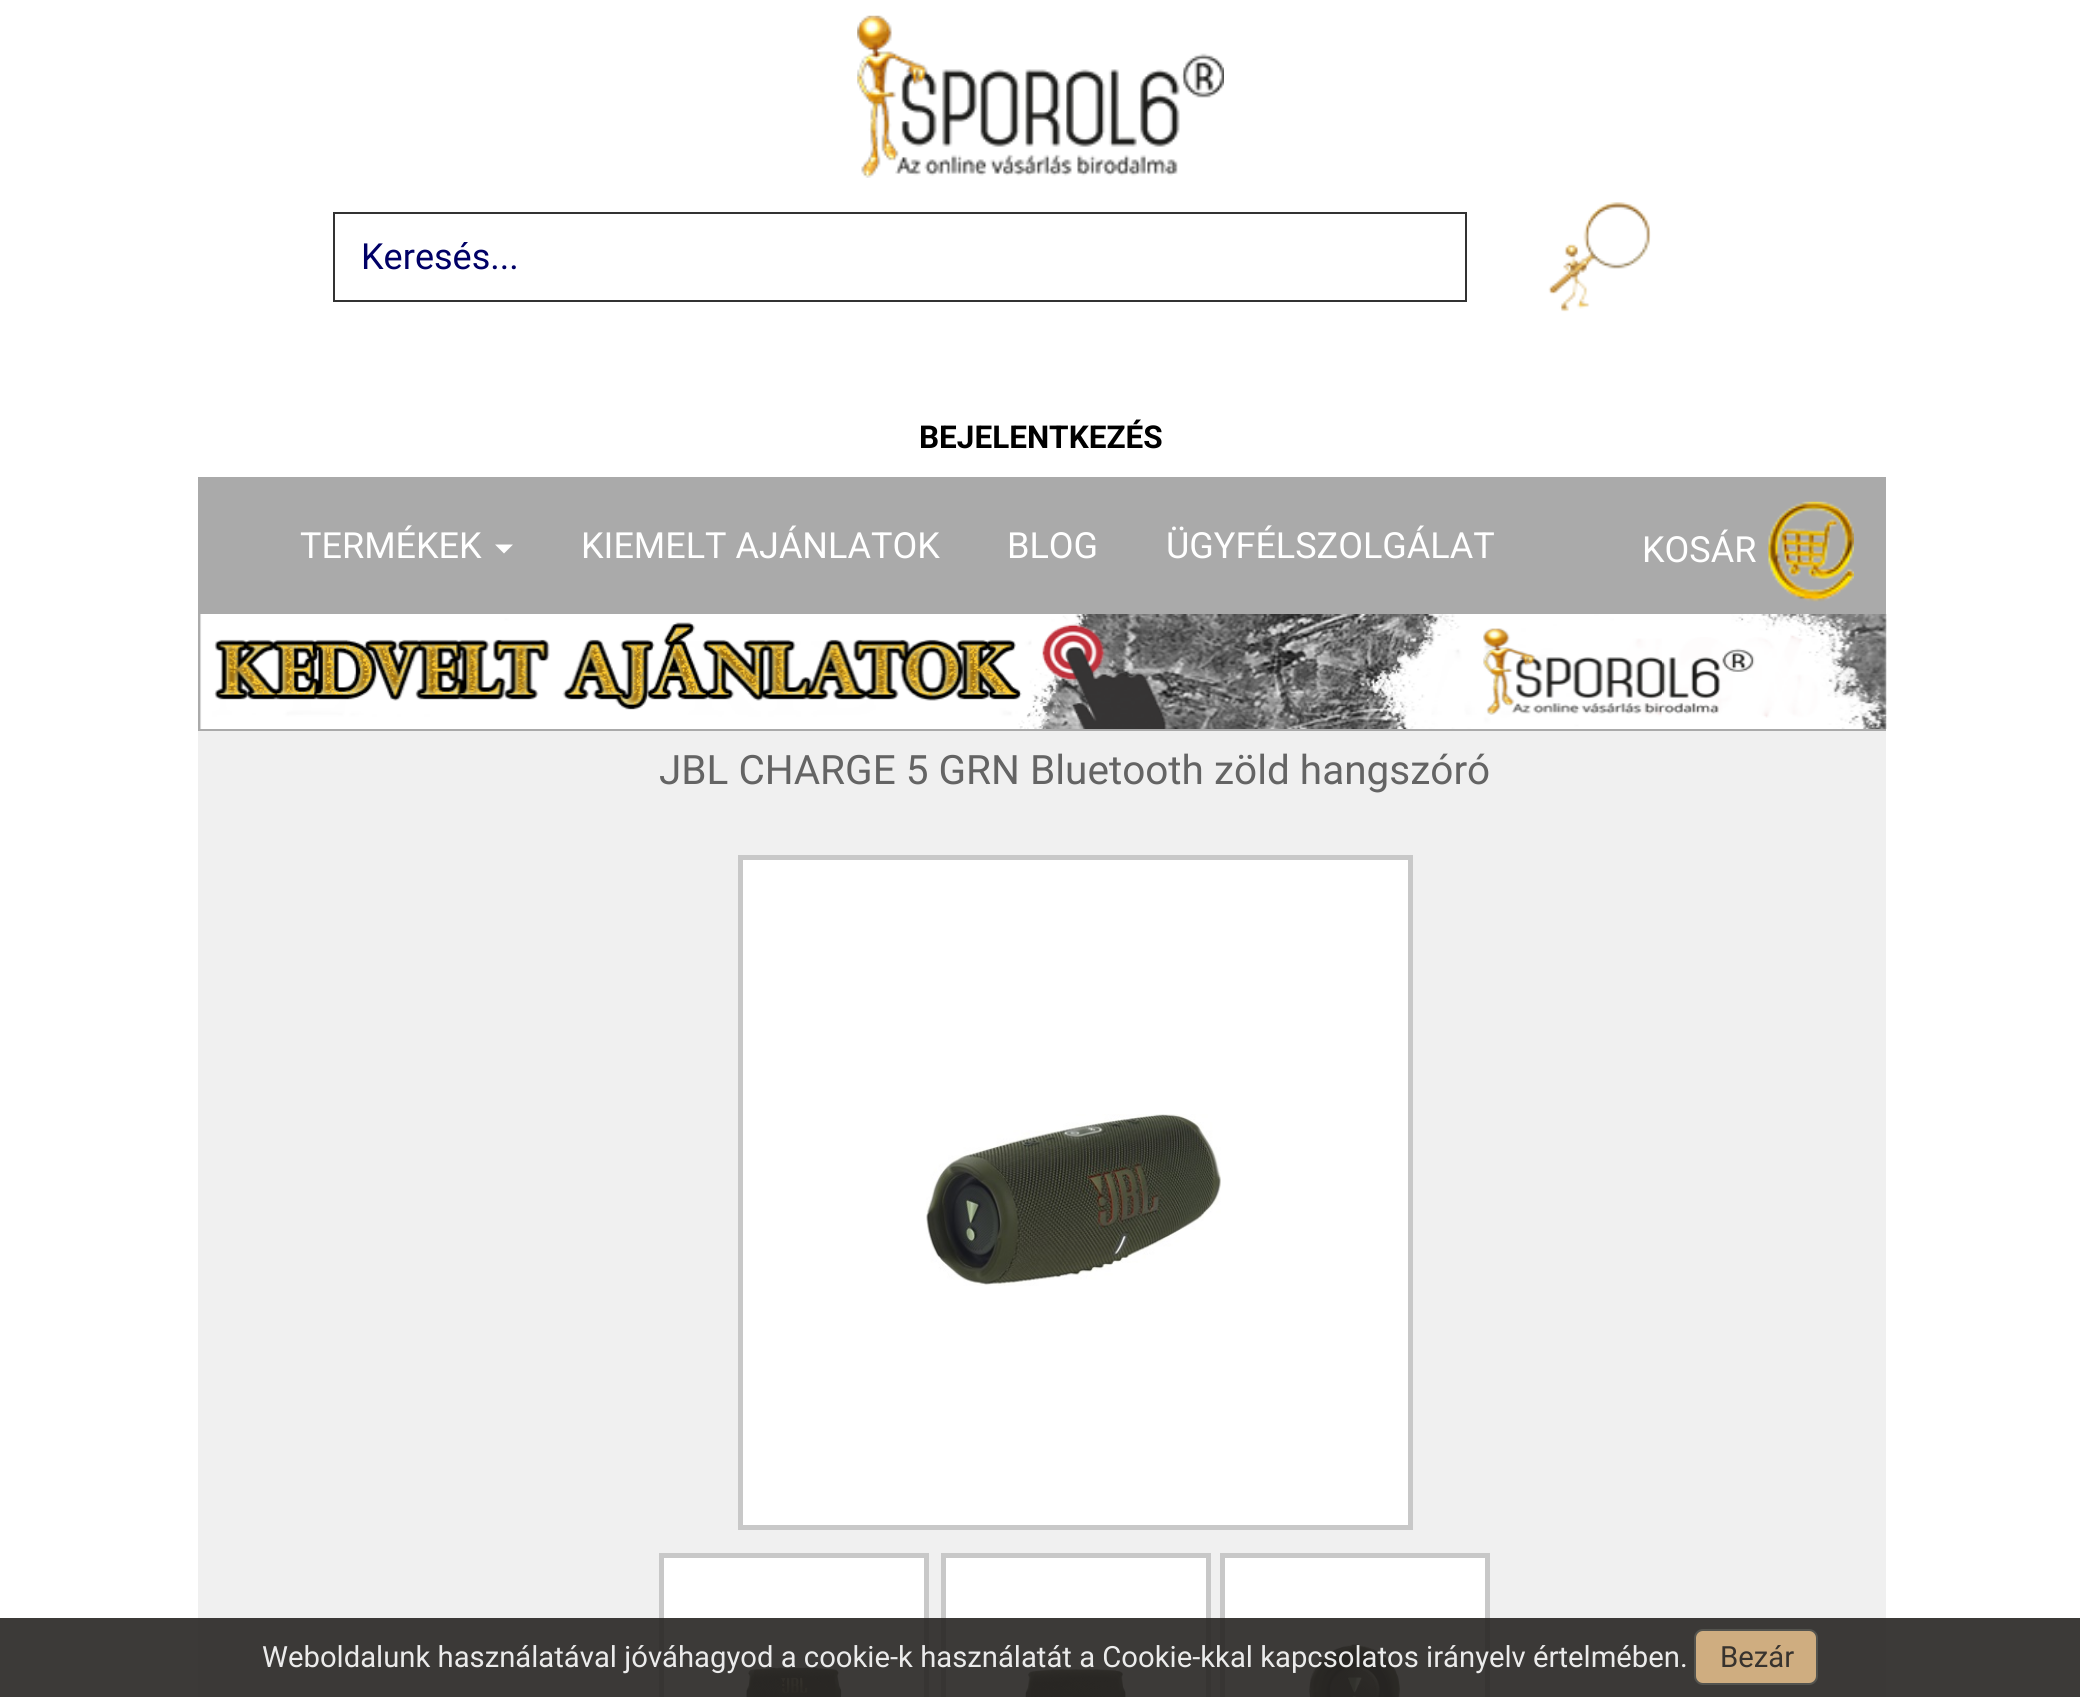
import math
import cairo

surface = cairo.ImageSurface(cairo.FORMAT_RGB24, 2080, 1697)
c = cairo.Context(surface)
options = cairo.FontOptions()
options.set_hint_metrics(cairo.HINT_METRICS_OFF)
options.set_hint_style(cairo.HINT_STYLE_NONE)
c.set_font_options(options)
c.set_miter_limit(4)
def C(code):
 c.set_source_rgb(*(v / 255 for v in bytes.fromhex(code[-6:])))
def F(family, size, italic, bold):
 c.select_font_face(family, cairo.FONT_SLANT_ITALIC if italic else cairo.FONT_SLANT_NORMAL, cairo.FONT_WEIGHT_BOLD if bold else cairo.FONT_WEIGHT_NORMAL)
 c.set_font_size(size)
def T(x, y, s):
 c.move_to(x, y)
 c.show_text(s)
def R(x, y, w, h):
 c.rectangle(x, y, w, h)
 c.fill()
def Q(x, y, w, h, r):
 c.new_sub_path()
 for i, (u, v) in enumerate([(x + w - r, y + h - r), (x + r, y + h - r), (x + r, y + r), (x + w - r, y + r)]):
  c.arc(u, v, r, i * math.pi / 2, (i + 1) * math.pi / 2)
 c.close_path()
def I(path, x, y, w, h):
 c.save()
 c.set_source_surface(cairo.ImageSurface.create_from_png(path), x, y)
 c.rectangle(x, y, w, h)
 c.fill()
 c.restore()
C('ffffff')
c.paint()
I('1.png',857,15,367,163)
c.rectangle(334,213,1132,88)
C('323232')
c.stroke()
F('Roboto',36,0,0)
C('000066')
T(361,269,'Keresés...')
I('2.png',1548,202,103,110)
F('Roboto',31.5,0,1)
C('000000')
T(919,448,'BEJELENTKEZÉS')
C('aaaaaa')
R(198,477,1688,254)
F('Roboto',36,0,0)
C('ffffff')
T(300,558,'TERMÉKEK')
c.new_path()
c.move_to(495,544.5)
c.line_to(513,544.5)
c.line_to(504,553.5)
c.close_path()
c.fill()
T(581,558,'KIEMELT AJÁNLATOK')
T(1007,558,'BLOG')
T(1166,558,'ÜGYFÉLSZOLGÁLAT')
T(1642,562,'KOSÁR')
I('3.png',1767,501,87,101)
I('4.png',200,614,1687,115)
C('f0f0f0')
R(198,731,1688,966)
F('Roboto',40.5,0,0)
C('646464')
T(659,784,'JBL CHARGE 5 GRN Bluetooth zöld hangszóró')
C('ffffff')
c.rectangle(740.5,857.5,670,670)
c.fill_preserve()
C('c8c8c8')
c.set_line_width(5)
c.stroke()
I('5.png',926,1114,295,172)
C('ffffff')
c.rectangle(661.5,1555.5,265,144)
c.fill_preserve()
C('c8c8c8')
c.stroke()
I('6.png',746,1667,96,30)
C('ffffff')
c.rectangle(943.5,1555.5,265,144)
c.fill_preserve()
C('c8c8c8')
c.stroke()
I('7.png',1025,1669,101,28)
C('ffffff')
c.rectangle(1222.5,1555.5,265,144)
c.fill_preserve()
C('c8c8c8')
c.stroke()
I('8.png',1308,1644,92,53)
c.set_source_rgba(0.153,0.145,0.137,0.9)
R(0,1618,2080,79)
F('Roboto',29.25,0,0)
C('ebebeb')
T(262,1667,'Weboldalunk használatával jóváhagyod a cookie-k használatát a Cookie-kkal kapcsolatos irányelv értelmében.')
C('cfad80')
Q(1695,1630,122,54,8)
c.fill_preserve()
C('54544f')
c.set_line_width(2)
c.stroke()
C('38332e')
T(1720,1667,'Bezár')
surface.write_to_png('o.png')
